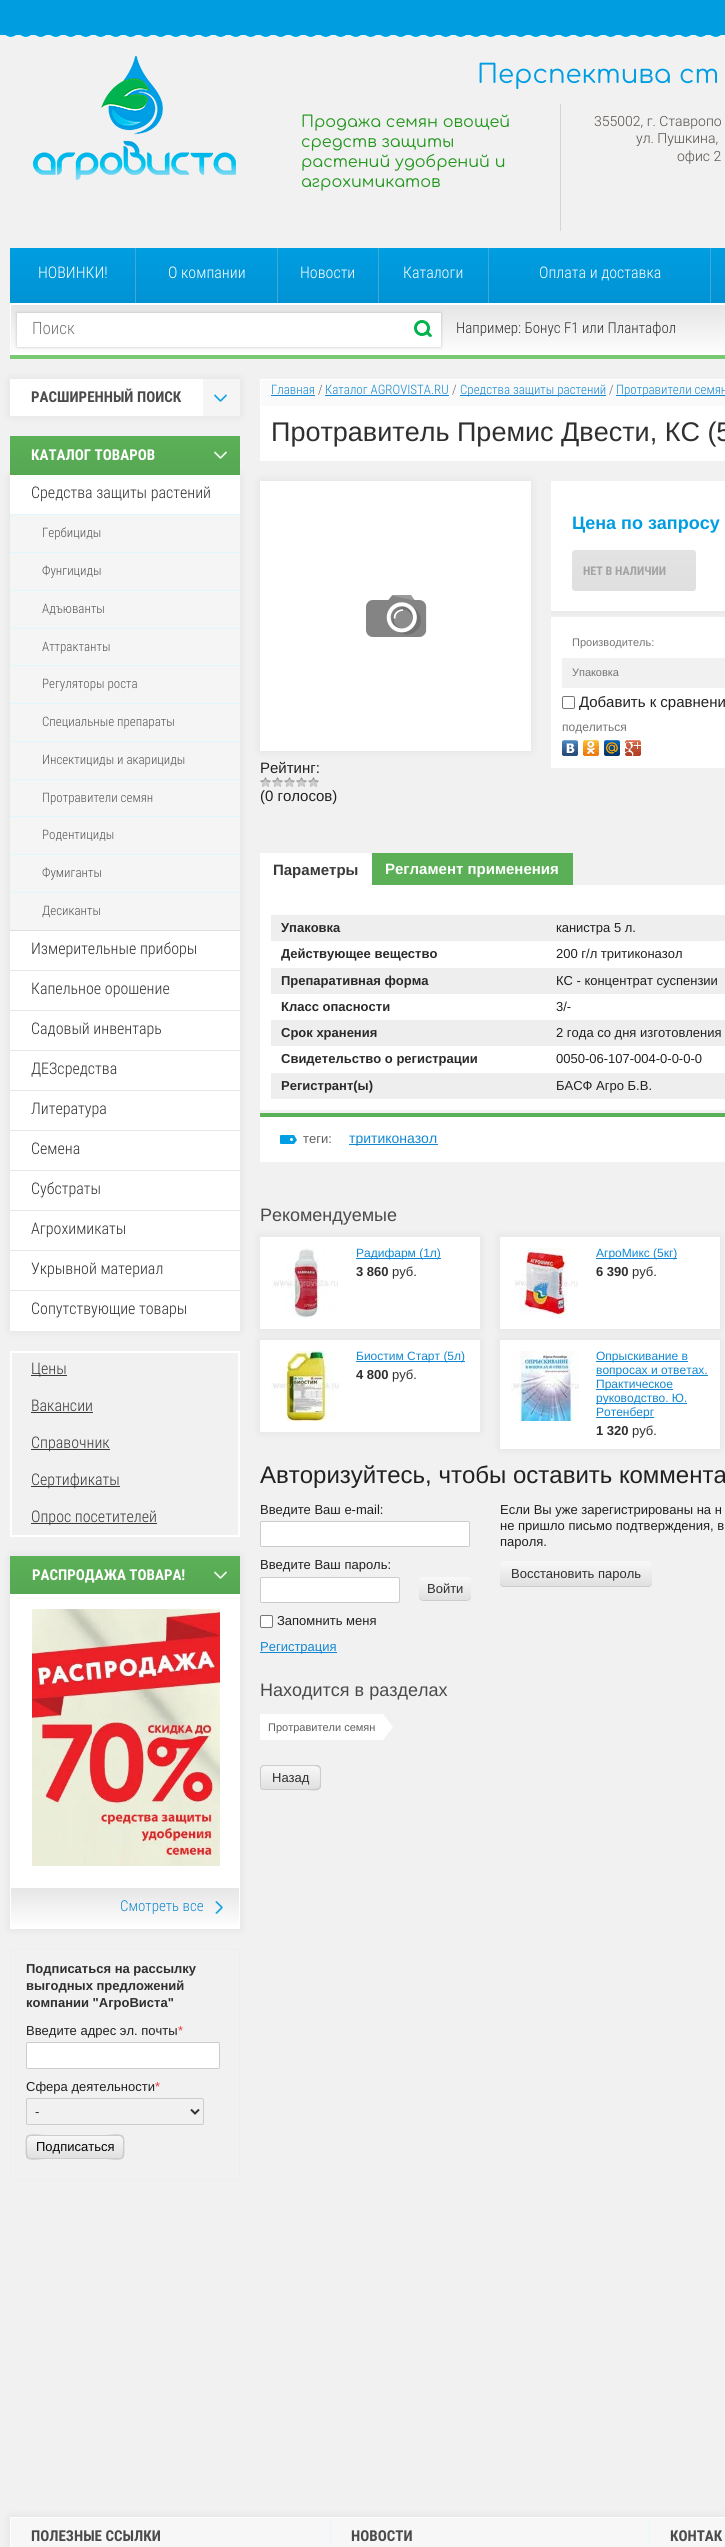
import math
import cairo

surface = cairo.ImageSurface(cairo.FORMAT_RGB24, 725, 2547)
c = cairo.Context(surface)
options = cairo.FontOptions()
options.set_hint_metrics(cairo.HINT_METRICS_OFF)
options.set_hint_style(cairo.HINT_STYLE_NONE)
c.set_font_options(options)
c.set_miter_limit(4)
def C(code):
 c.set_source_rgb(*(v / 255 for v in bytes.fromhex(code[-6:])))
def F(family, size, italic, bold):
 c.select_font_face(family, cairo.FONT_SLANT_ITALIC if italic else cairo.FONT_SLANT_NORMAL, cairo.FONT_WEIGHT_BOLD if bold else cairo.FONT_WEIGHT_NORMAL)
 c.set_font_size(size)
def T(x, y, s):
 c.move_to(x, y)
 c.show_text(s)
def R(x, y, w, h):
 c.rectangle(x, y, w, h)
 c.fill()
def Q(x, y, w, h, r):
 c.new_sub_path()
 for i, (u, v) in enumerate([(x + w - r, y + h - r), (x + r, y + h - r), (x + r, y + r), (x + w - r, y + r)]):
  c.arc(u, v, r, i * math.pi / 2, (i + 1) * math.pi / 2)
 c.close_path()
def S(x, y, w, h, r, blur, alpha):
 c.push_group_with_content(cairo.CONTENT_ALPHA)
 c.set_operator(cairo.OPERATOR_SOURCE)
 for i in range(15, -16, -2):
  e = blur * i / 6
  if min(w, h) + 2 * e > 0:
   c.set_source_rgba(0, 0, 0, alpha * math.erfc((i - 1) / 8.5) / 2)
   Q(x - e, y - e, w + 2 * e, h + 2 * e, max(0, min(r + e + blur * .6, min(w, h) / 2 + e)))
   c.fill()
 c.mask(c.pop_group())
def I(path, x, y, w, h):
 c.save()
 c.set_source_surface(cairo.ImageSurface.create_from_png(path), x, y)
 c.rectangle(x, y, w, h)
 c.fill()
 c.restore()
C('f1f1f1')
c.paint()
C('009de1')
R(0,0,725,35)
I('1.png',5,35,716,2)
F('Comfortaa',26,0,0)
T(477,83,'Перспектива ст')
I('2.png',33,56,203,124)
F('Comfortaa',16,0,0)
C('23971e')
T(301,127,'Продажа семян овощей')
T(301,147,'средств защиты')
T(301,167,'растений удобрений и')
T(301,187,'агрохимикатов')
C('d5d5d5')
R(560,104,1,127)
F('Roboto Light',14,0,0)
C('544d46')
T(594,126,'355002, г. Ставропо')
T(636,143,'ул. Пушкина,')
T(677,161,'офис 2')
gradient = cairo.LinearGradient(490,248,490,303)
gradient.add_color_stop_rgba(0,0,0.616,0.882,1)
gradient.add_color_stop_rgba(1,0,0.576,0.827,1)
c.set_source(gradient)
R(10,248,715,55)
C('ffffff')
R(10,303,715,52)
F('Roboto Condensed Light',16,0,0)
T(38,278,'НОВИНКИ!')
C('42a9d6')
R(135,248,1,55)
C('ffffff')
T(168,278,'О компании')
C('42a9d6')
R(277,248,1,55)
C('ffffff')
T(300,278,'Новости')
C('42a9d6')
R(378,248,1,55)
C('ffffff')
T(403,278,'Каталоги')
C('42a9d6')
R(488,248,1,55)
C('ffffff')
T(539,278,'Оплата и доставка')
C('42a9d6')
R(710,248,1,55)
gradient = cairo.LinearGradient(491,305,491,356)
gradient.add_color_stop_rgba(0,0,0,0,.1)
gradient.add_color_stop_rgba(1,1,1,1,.1)
c.set_source(gradient)
R(11,305,714,47)
C('000000')
S(17,313,424,34,0,1.5,.22)
C('ffffff')
R(17,313,424,34)
F('Roboto Condensed Light',17,0,0)
C('757575')
T(32,334,'Поиск')
I('3.png',414,320,18,17)
F('Roboto Condensed Light',15,0,0)
C('302f2f')
T(456,333,'Например: Бонус F1 или Плантафол')
C('77ca73')
R(10,355,715,4)
C('000000')
S(10,379,230,37,0,5,.07)
C('ffffff')
R(10,379,193,37)
F('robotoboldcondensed',15,0,1)
C('4b4b4b')
T(31,402,'РАСШИРЕННЫЙ ПОИСК')
C('f5f5f5')
R(203,379,37,37)
I('4.png',214,394,13,8)
C('000000')
S(10,475,230,856,0,5,.07)
gradient = cairo.LinearGradient(125,436,125,475)
gradient.add_color_stop_rgba(0,0.357,0.694,0.341,1)
gradient.add_color_stop_rgba(1,0.337,0.655,0.322,1)
c.set_source(gradient)
R(10,436,230,39)
C('ffffff')
T(31,460,'КАТАЛОГ ТОВАРОВ')
I('5.png',214,451,13,8)
R(10,475,230,856)
F('Roboto Condensed Light',16,0,0)
C('302f2f')
T(31,498,'Средства защиты растений')
C('f5f5f5')
R(10,515,230,415)
C('e1f6ff')
R(10,514,230,1)
F('Roboto Condensed Light',13,0,0)
C('555454')
T(42,537,'Гербициды')
C('e1f6ff')
R(10,552,230,1)
C('555454')
T(42,575,'Фунгициды')
C('e1f6ff')
R(10,590,230,1)
C('555454')
T(42,613,'Адъюванты')
C('e1f6ff')
R(10,628,230,1)
C('555454')
T(42,651,'Аттрактанты')
C('e1f6ff')
R(10,665,230,1)
C('555454')
T(42,688,'Регуляторы роста')
C('e1f6ff')
R(10,703,230,1)
C('555454')
T(42,726,'Специальные препараты')
C('e1f6ff')
R(10,741,230,1)
C('555454')
T(42,764,'Инсектициды и акарициды')
C('e1f6ff')
R(10,779,230,1)
C('555454')
T(42,802,'Протравители семян')
C('e1f6ff')
R(10,816,230,1)
C('555454')
T(42,839,'Родентициды')
C('e1f6ff')
R(10,854,230,1)
C('555454')
T(42,877,'Фумиганты')
C('e1f6ff')
R(10,892,230,1)
C('555454')
T(42,915,'Десиканты')
C('dedede')
R(10,930,230,1)
F('Roboto Condensed Light',16,0,0)
C('302f2f')
T(31,954,'Измерительные приборы')
C('e6e6e6')
R(10,970,230,1)
C('302f2f')
T(31,994,'Капельное орошение')
C('e6e6e6')
R(10,1010,230,1)
C('302f2f')
T(31,1034,'Садовый инвентарь')
C('e6e6e6')
R(10,1050,230,1)
C('302f2f')
T(31,1074,'ДЕЗсредства')
C('e6e6e6')
R(10,1090,230,1)
C('302f2f')
T(31,1114,'Литература')
C('e6e6e6')
R(10,1130,230,1)
C('302f2f')
T(31,1154,'Семена')
C('e6e6e6')
R(10,1170,230,1)
C('302f2f')
T(31,1194,'Субстраты')
C('e6e6e6')
R(10,1210,230,1)
C('302f2f')
T(31,1234,'Агрохимикаты')
C('e6e6e6')
R(10,1250,230,1)
C('302f2f')
T(31,1274,'Укрывной материал')
C('e6e6e6')
R(10,1290,230,1)
C('302f2f')
T(31,1314,'Сопутствующие товары')
c.rectangle(11,1352,228,184)
C('ffffff')
c.stroke()
C('393939')
R(31,1375,36,1)
T(31,1374,'Цены')
T(31,1411,'Вакансии')
R(31,1412,62,1)
R(31,1449,79,1)
T(31,1448,'Справочник')
R(31,1486,89,1)
T(31,1485,'Сертификаты')
R(31,1523,126,1)
T(31,1522,'Опрос посетителей')
C('000000')
S(10,1556,230,373,0,5,.07)
C('ffffff')
R(10,1594,230,335)
gradient = cairo.LinearGradient(125,1556,125,1594)
gradient.add_color_stop_rgba(0,0.357,0.694,0.341,1)
gradient.add_color_stop_rgba(1,0.337,0.655,0.322,1)
c.set_source(gradient)
R(10,1556,230,38)
F('robotoboldcondensed',15,0,1)
C('ffffff')
T(32,1580,'РАСПРОДАЖА ТОВАРА!')
I('6.png',214,1571,13,8)
I('7.png',32,1609,188,257)
gradient = cairo.LinearGradient(125,1888,125,1929)
gradient.add_color_stop_rgba(0,0.902,0.902,0.902,1)
gradient.add_color_stop_rgba(1,1,1,1,1)
c.set_source(gradient)
R(11,1888,228,37)
F('Roboto Condensed Light',15,0,0)
C('1288d2')
T(120,1911,'Смотреть все')
I('8.png',215,1901,8,13)
Q(10.5,1949.5,229,230,1.5)
C('eeeeee')
c.set_line_width(1)
c.stroke()
F('Liberation Sans',13,0,1)
C('302f2f')
T(26,1973,'Подписаться на рассылку')
T(26,1990,'выгодных предложений')
T(26,2007,'компании "АгроВиста"')
F('Liberation Sans',13,0,0)
C('212121')
T(26,2035,'Введите адрес эл. почты')
C('eb3c3c')
T(178,2035,'*')
C('ffffff')
Q(26.5,2042.5,193,26,1.5)
c.fill_preserve()
C('cccccc')
c.stroke()
C('212121')
T(26,2091,'Сфера деятельности')
C('eb3c3c')
T(155,2091,'*')
Q(26.5,2098.5,177,26,1.5)
C('cccccc')
c.stroke()
c.new_path()
c.move_to(191,2109.5)
c.line_to(195,2113.5)
c.line_to(199,2109.5)
C('333333')
c.set_line_width(2)
c.stroke()
C('302f2f')
T(35,2116,'-')
gradient = cairo.LinearGradient(75,2135,75,2159)
gradient.add_color_stop_rgba(0,0.973,0.973,0.973,1)
gradient.add_color_stop_rgba(1,0.875,0.875,0.875,1)
c.set_source(gradient)
Q(26,2135,98,24,4)
c.fill()
C('cccccc')
c.new_path()
c.move_to(28,2136)
c.curve_to(24,2138,26,2146,26,2150)
c.line_to(26,2156)
c.curve_to(27,2162,39,2159,45,2159)
c.line_to(122,2159)
c.line_to(123,2157)
c.line_to(122,2158)
c.line_to(46,2158)
c.curve_to(28,2158,27,2162,27,2146)
c.curve_to(27,2143,26,2138,28,2136)
c.close_path()
c.fill()
c.new_path()
c.move_to(29,2136)
c.line_to(119,2136)
c.curve_to(121,2136,123,2138,123,2140)
c.line_to(123,2156)
c.line_to(122,2158)
c.curve_to(126,2156,124,2148,124,2144)
c.line_to(124,2138)
c.curve_to(123,2132,111,2135,105,2135)
c.line_to(28,2135)
c.line_to(27,2137)
c.close_path()
c.fill()
c.new_path()
c.move_to(27,2157)
c.line_to(28,2159)
c.line_to(105,2159)
c.curve_to(111,2159,123,2162,124,2156)
c.line_to(124,2150)
c.curve_to(124,2146,126,2138,122,2136)
c.curve_to(124,2138,123,2143,123,2146)
c.curve_to(123,2162,122,2158,104,2158)
c.line_to(28,2158)
c.close_path()
c.fill()
c.new_path()
c.move_to(31,2136)
c.line_to(121,2136)
c.line_to(123,2137)
c.line_to(122,2135)
c.line_to(45,2135)
c.curve_to(39,2135,27,2132,26,2138)
c.line_to(26,2144)
c.curve_to(26,2148,24,2156,28,2158)
c.curve_to(26,2156,27,2151,27,2148)
c.curve_to(27,2145,25,2136,31,2136)
c.close_path()
c.fill()
C('040404')
T(36,2151,'Подписаться')
C('ffffff')
R(260,379,465,82)
C('fafafa')
R(261,380,464,26)
F('Roboto Condensed Light',13,0,0)
C('1288d2')
T(271,394,'Главная')
R(271,395,44,1)
C('615f5f')
T(318,394,'/')
C('1288d2')
T(325,394,'Каталог AGROVISTA.RU')
R(325,395,124,1)
C('615f5f')
T(452,394,'/')
C('1288d2')
R(460,395,146,1)
T(460,394,'Средства защиты растений')
C('615f5f')
T(609,394,'/')
C('1288d2')
R(616,395,109,1)
T(616,394,'Протравители семян')
F('Liberation Sans',27,0,0)
C('302f2f')
T(271,441,'Протравитель Премис Двести, КС (5')
c.save()
c.rectangle(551,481,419,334)
c.clip()
C('000000')
S(551,481,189,130,0,5,.07)
c.restore()
C('ffffff')
R(551,481,174,130)
F('Liberation Sans',18,0,1)
C('009de1')
T(572,529,'Цена по запросу')
gradient = cairo.LinearGradient(634,550,634,591)
gradient.add_color_stop_rgba(0,0.89,0.89,0.89,1)
gradient.add_color_stop_rgba(1,0.875,0.875,0.875,1)
c.set_source(gradient)
Q(572,550,124,41,3)
c.fill()
F('robotoboldcondensed',12,0,1)
C('a3a3a3')
T(583,575,'НЕТ В НАЛИЧИИ')
C('ffffff')
R(551,617,174,151)
F('Liberation Sans',11,0,0)
C('757575')
T(572,646,'Производитель:')
C('f1f1f1')
R(562,658,163,30)
C('757575')
T(572,676,'Упаковка')
Q(562.5,696.5,12,12,1.5)
C('767676')
c.set_line_width(1)
c.stroke()
F('Liberation Sans',15,0,0)
C('212121')
T(579,707,'Добавить к сравнени')
F('Liberation Sans',12,0,0)
C('757575')
T(562,731,'поделиться')
I('9.png',562,740,16,16)
I('10.png',583,740,16,16)
I('11.png',604,740,16,16)
I('12.png',625,740,16,16)
C('000000')
S(260,481,271,270,0,5,.07)
C('ffffff')
R(260,481,271,270)
I('13.png',366,595,61,42)
F('Liberation Sans',15,0,0)
C('212121')
T(260,773,'Рейтинг:')
I('14.png',260,777,59,10)
T(260,801,'(0 голосов)')
C('ffffff')
R(260,853,112,32)
F('Liberation Sans',15,0,1)
C('393939')
T(273,875,'Параметры')
C('5bb057')
R(372,853,201,32)
C('ffffff')
T(385,874,'Регламент применения')
R(260,885,465,225)
C('eeeeee')
R(271,915,454,26)
F('Liberation Sans',13,0,1)
C('2a2a2a')
T(281,932,'Упаковка')
F('Liberation Sans',13,0,0)
C('212121')
T(556,932,'канистра 5 л.')
F('Liberation Sans',13,0,1)
C('2a2a2a')
T(281,958,'Действующее вещество')
F('Liberation Sans',13,0,0)
C('212121')
T(556,958,'200 г/л тритиконазол')
C('eeeeee')
R(271,968,454,26)
F('Liberation Sans',13,0,1)
C('2a2a2a')
T(281,985,'Препаративная форма')
F('Liberation Sans',13,0,0)
C('212121')
T(556,985,'КС - концентрат суспензии')
F('Liberation Sans',13,0,1)
C('2a2a2a')
T(281,1011,'Класс опасности')
F('Liberation Sans',13,0,0)
C('212121')
T(556,1011,'3/-')
C('eeeeee')
R(271,1020,454,26)
F('Liberation Sans',13,0,1)
C('2a2a2a')
T(281,1037,'Срок хранения')
F('Liberation Sans',13,0,0)
C('212121')
T(556,1037,'2 года со дня изготовления')
F('Liberation Sans',13,0,1)
C('2a2a2a')
T(281,1063,'Свидетельство о регистрации')
F('Liberation Sans',13,0,0)
C('212121')
T(556,1063,'0050-06-107-004-0-0-0-0')
C('eeeeee')
R(271,1073,454,26)
F('Liberation Sans',13,0,1)
C('2a2a2a')
T(281,1090,'Регистрант(ы)')
F('Liberation Sans',13,0,0)
C('212121')
T(556,1090,'БАСФ Агро Б.В.')
C('ffffff')
R(260,1117,465,45)
C('5bb157')
R(260,1113,465,4)
I('15.png',280,1135,17,9)
C('615f5f')
T(303,1143,'теги:')
C('1288d2')
R(349,1144,89,1)
F('Liberation Sans',14,0,0)
T(349,1143,'тритиконазол')
F('Liberation Sans',18,0,0)
C('4b4b4b')
T(260,1221,'Рекомендуемые')
C('000000')
S(260,1237,220,92,0,5,.07)
C('ffffff')
R(260,1237,220,92)
I('16.png',272,1248,66,70)
C('1288d2')
R(356,1258,85,1)
F('Liberation Sans',12,0,0)
T(356,1257,'Радифарм (1л)')
F('Liberation Sans',13,0,1)
C('302f2f')
T(356,1276,'3 860')
F('Liberation Sans',13,0,0)
T(392,1276,'руб.')
C('000000')
S(500,1237,220,92,0,5,.07)
C('ffffff')
R(500,1237,220,92)
I('17.png',514,1248,64,70)
C('1288d2')
R(596,1258,81,1)
F('Liberation Sans',12,0,0)
T(596,1257,'АгроМикс (5кг)')
F('Liberation Sans',13,0,1)
C('302f2f')
T(596,1276,'6 390')
F('Liberation Sans',13,0,0)
T(632,1276,'руб.')
C('000000')
S(260,1340,220,92,0,5,.07)
C('ffffff')
R(260,1340,220,92)
I('18.png',271,1351,68,70)
C('1288d2')
R(356,1361,109,1)
F('Liberation Sans',12,0,0)
T(356,1360,'Биостим Старт (5л)')
F('Liberation Sans',13,0,1)
C('302f2f')
T(356,1379,'4 800')
F('Liberation Sans',13,0,0)
T(392,1379,'руб.')
C('000000')
S(500,1340,220,109,0,5,.07)
C('ffffff')
R(500,1340,220,109)
I('19.png',511,1351,68,70)
C('1288d2')
R(596,1361,92,1)
F('Liberation Sans',12,0,0)
T(596,1360,'Опрыскивание в')
R(596,1375,112,1)
T(596,1374,'вопросах и ответах.')
R(596,1389,77,1)
T(596,1388,'Практическое')
R(596,1403,91,1)
T(596,1402,'руководство. Ю.')
R(596,1417,58,1)
T(596,1416,'Ротенберг')
F('Liberation Sans',13,0,1)
C('302f2f')
T(596,1435,'1 320')
F('Liberation Sans',13,0,0)
T(632,1435,'руб.')
F('Liberation Sans',24,0,0)
C('212121')
T(260,1483,'Авторизуйтесь, чтобы оставить коммента')
F('Liberation Sans',13,0,0)
T(260,1514,'Введите Ваш e-mail:')
C('ffffff')
Q(260.5,1521.5,209,25,1.5)
c.fill_preserve()
C('cccccc')
c.stroke()
C('212121')
T(260,1569,'Введите Ваш пароль:')
C('ffffff')
Q(260.5,1577.5,139,25,1.5)
c.fill_preserve()
C('cccccc')
c.stroke()
gradient = cairo.LinearGradient(445,1577,445,1601)
gradient.add_color_stop_rgba(0,0.973,0.973,0.973,1)
gradient.add_color_stop_rgba(1,0.875,0.875,0.875,1)
c.set_source(gradient)
Q(419,1577,52,24,4)
c.fill()
C('cccccc')
c.new_path()
c.move_to(419,1596)
c.curve_to(419,1602,425,1601,430,1601)
c.line_to(460,1601)
c.curve_to(465,1601,471,1602,471,1596)
c.curve_to(471,1598,469,1600,467,1600)
c.line_to(423,1600)
c.curve_to(421,1600,419,1598,419,1596)
c.close_path()
c.fill()
C('302f2f')
T(427,1593,'Войти')
C('ffffff')
Q(260.5,1615.5,12,12,1.5)
c.fill_preserve()
C('767676')
c.stroke()
C('212121')
T(277,1625,'Запомнить меня')
C('1288d2')
R(260,1652,77,1)
T(260,1651,'Регистрация')
C('212121')
T(500,1514,'Если Вы уже зарегистрированы на н')
T(500,1530,'не пришло письмо подтверждения, в')
T(500,1546,'пароля.')
gradient = cairo.LinearGradient(576,1561,576,1587)
gradient.add_color_stop_rgba(0,0.973,0.973,0.973,1)
gradient.add_color_stop_rgba(1,0.875,0.875,0.875,1)
c.set_source(gradient)
Q(500,1561,152,26,4)
c.fill()
C('cccccc')
c.new_path()
c.move_to(500,1582)
c.curve_to(500,1585,501,1587,504,1587)
c.line_to(649,1587)
c.curve_to(651,1586,652,1584,652,1582)
c.curve_to(652,1584,650,1586,648,1586)
c.line_to(504,1586)
c.curve_to(502,1586,500,1584,500,1582)
c.close_path()
c.fill()
C('302f2f')
T(511,1578,'Восстановить пароль')
F('Liberation Sans',18,0,0)
C('4b4b4b')
T(260,1696,'Находится в разделах')
C('ffffff')
R(260,1714,123,26)
F('Liberation Sans',11,0,0)
C('615f5f')
T(268,1731,'Протравители семян')
C('ffffff')
c.new_path()
c.move_to(383,1740)
c.line_to(383,1714)
c.line_to(393,1727)
c.close_path()
c.fill()
gradient = cairo.LinearGradient(291,1765,291,1790)
gradient.add_color_stop_rgba(0,0.973,0.973,0.973,1)
gradient.add_color_stop_rgba(1,0.875,0.875,0.875,1)
c.set_source(gradient)
Q(260,1765,61,25,4)
c.fill()
C('cccccc')
c.new_path()
c.move_to(262,1766)
c.curve_to(259,1768,260,1775,260,1778)
c.curve_to(260,1791,259,1790,273,1790)
c.line_to(308,1790)
c.curve_to(310,1790,318,1792,320,1788)
c.curve_to(317,1790,289,1789,286,1789)
c.line_to(263,1789)
c.curve_to(261,1789,261,1786,261,1785)
c.line_to(261,1769)
c.close_path()
c.fill()
c.new_path()
c.move_to(263,1766)
c.line_to(314,1766)
c.curve_to(322,1766,320,1771,320,1778)
c.curve_to(320,1781,321,1787,319,1789)
c.curve_to(320,1789,321,1787,321,1786)
c.line_to(321,1769)
c.curve_to(321,1767,319,1765,317,1765)
c.line_to(264,1765)
c.curve_to(263,1765,262,1766,261,1767)
c.close_path()
c.fill()
c.new_path()
c.move_to(261,1789)
c.curve_to(262,1790,263,1790,264,1790)
c.line_to(317,1790)
c.curve_to(319,1790,321,1788,321,1786)
c.line_to(321,1769)
c.curve_to(321,1768,320,1766,319,1766)
c.curve_to(320,1767,320,1770,320,1776)
c.curve_to(320,1783,320,1786,319,1788)
c.curve_to(317,1789,314,1789,307,1789)
c.close_path()
c.fill()
c.new_path()
c.move_to(265,1766)
c.line_to(309,1766)
c.curve_to(315,1766,319,1766,320,1767)
c.curve_to(320,1766,318,1765,317,1765)
c.line_to(264,1765)
c.curve_to(262,1765,260,1767,260,1769)
c.line_to(260,1786)
c.line_to(261,1789)
c.curve_to(260,1787,261,1769,261,1768)
c.curve_to(262,1767,263,1766,265,1766)
c.close_path()
c.fill()
F('Liberation Sans',13,0,0)
C('302f2f')
T(272,1782,'Назад')
C('000000')
S(10,2517,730,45,0,5,.07)
C('ffffff')
R(10,2517,715,1)
R(10,2517,1,30)
C('f7f7f7')
R(11,2518,319,29)
F('robotoboldcondensed',15,0,1)
C('4b4b4b')
T(31,2541,'ПОЛЕЗНЫЕ ССЫЛКИ')
C('e6f7ff')
R(330,2518,1,29)
C('f7f7f7')
R(331,2518,318,29)
C('4b4b4b')
T(351,2541,'НОВОСТИ')
C('e6f7ff')
R(649,2518,1,29)
C('f7f7f7')
R(650,2518,75,29)
C('4b4b4b')
T(670,2541,'КОНТАК')
surface.write_to_png('o.png')
